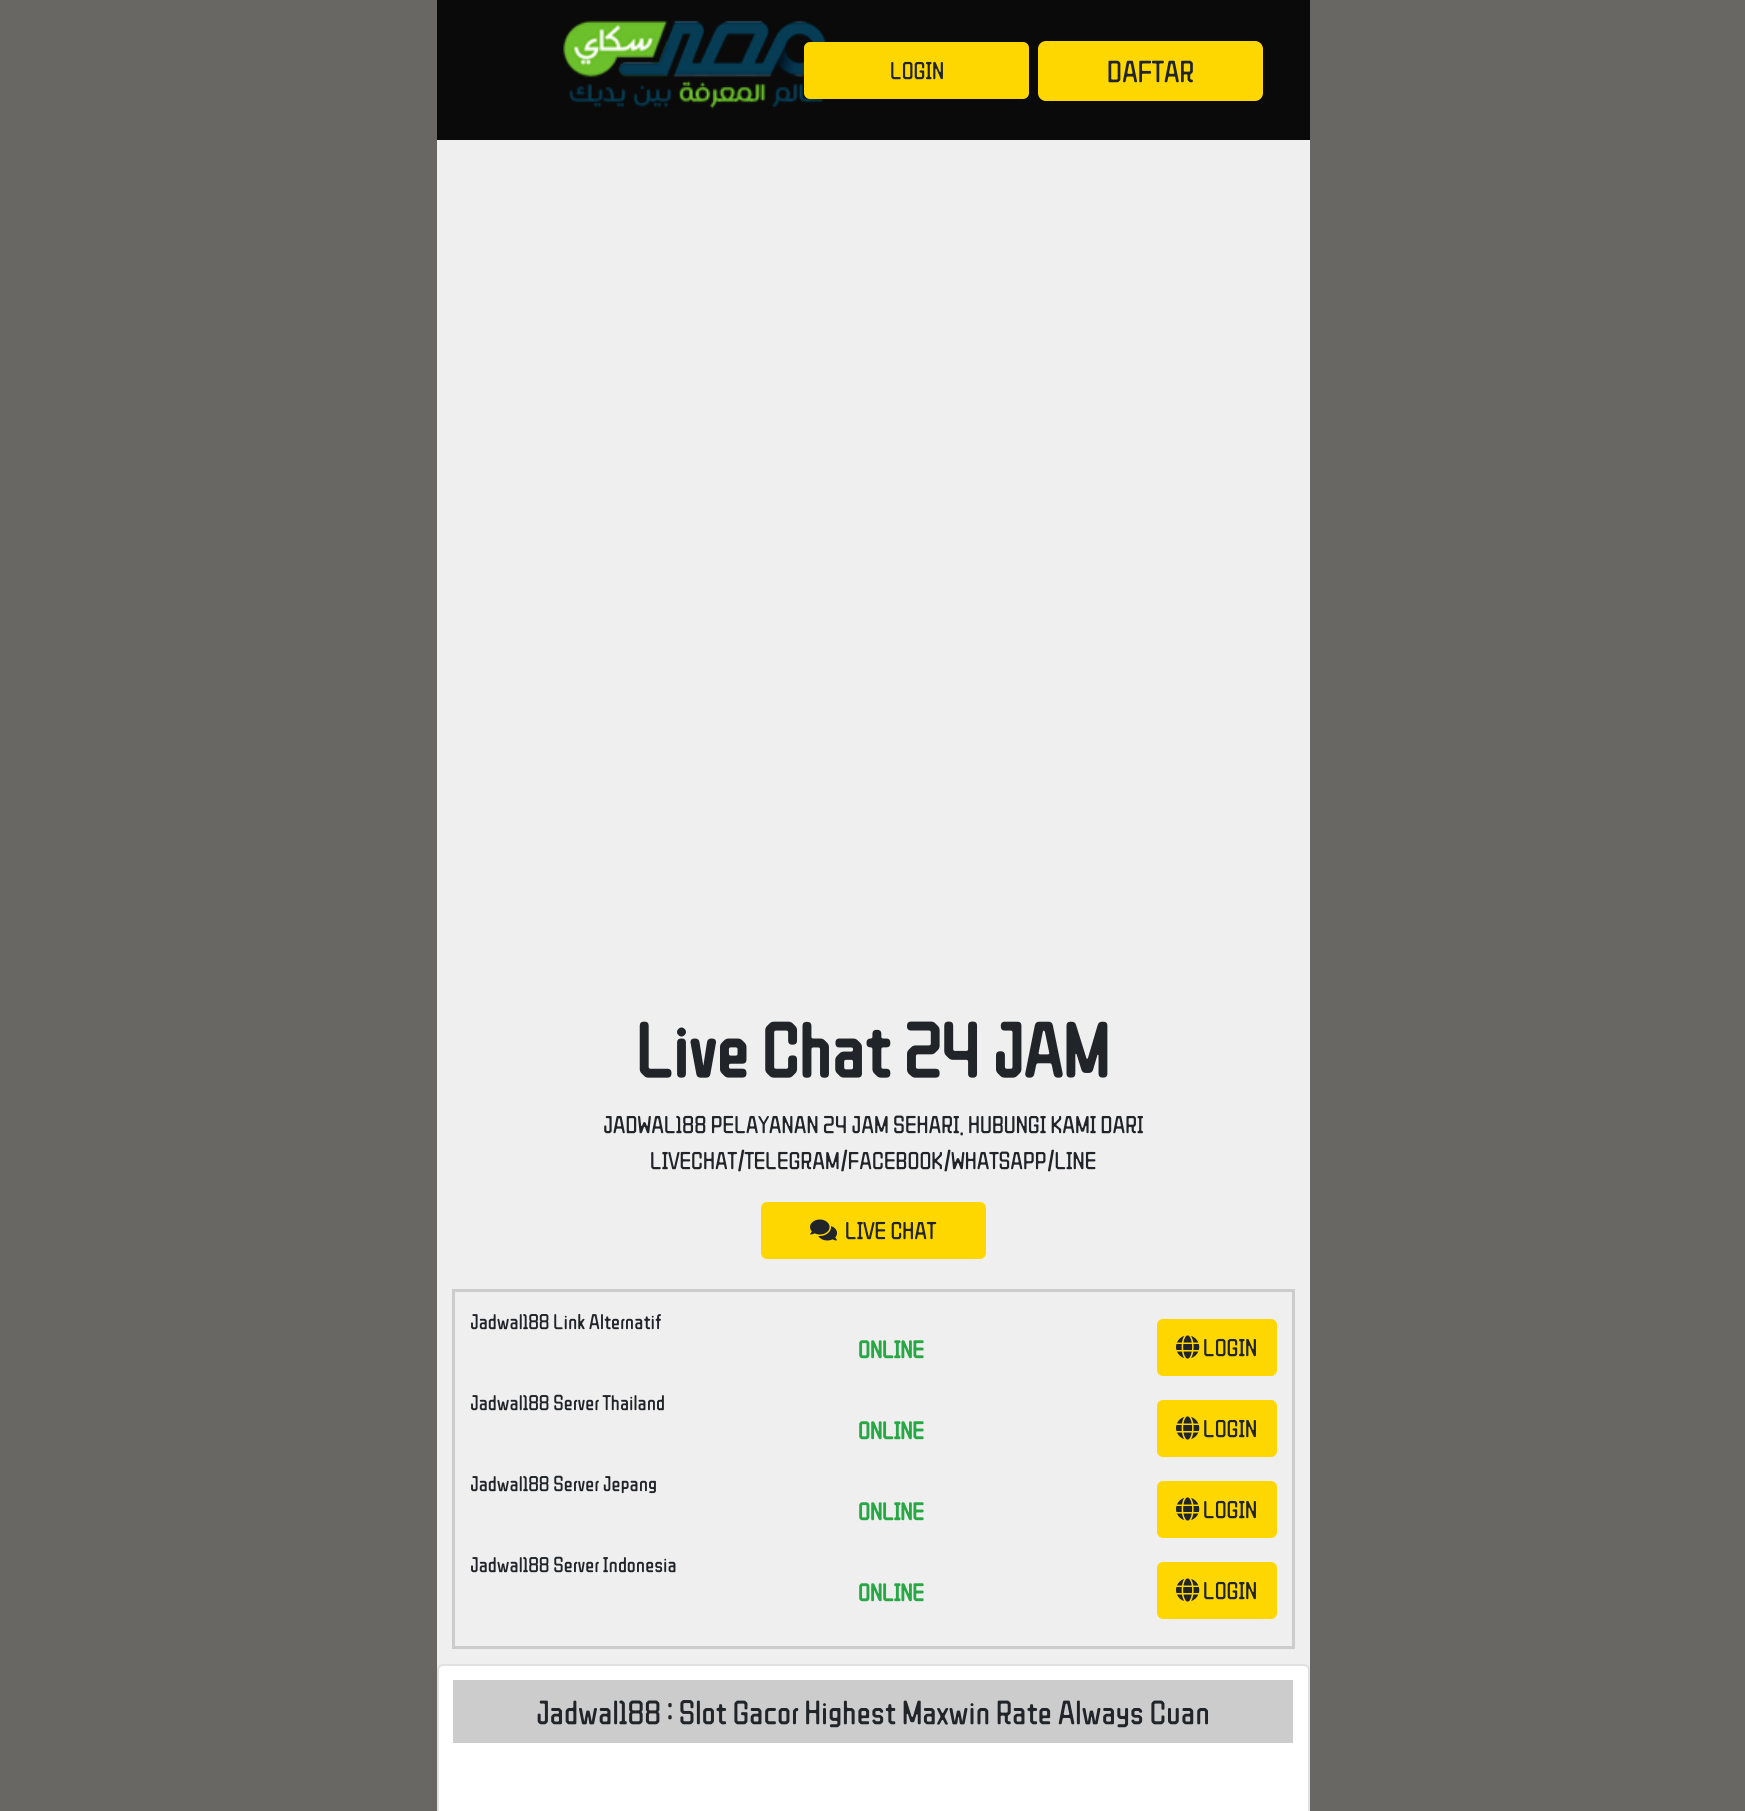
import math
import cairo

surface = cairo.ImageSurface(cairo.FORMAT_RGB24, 1745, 1811)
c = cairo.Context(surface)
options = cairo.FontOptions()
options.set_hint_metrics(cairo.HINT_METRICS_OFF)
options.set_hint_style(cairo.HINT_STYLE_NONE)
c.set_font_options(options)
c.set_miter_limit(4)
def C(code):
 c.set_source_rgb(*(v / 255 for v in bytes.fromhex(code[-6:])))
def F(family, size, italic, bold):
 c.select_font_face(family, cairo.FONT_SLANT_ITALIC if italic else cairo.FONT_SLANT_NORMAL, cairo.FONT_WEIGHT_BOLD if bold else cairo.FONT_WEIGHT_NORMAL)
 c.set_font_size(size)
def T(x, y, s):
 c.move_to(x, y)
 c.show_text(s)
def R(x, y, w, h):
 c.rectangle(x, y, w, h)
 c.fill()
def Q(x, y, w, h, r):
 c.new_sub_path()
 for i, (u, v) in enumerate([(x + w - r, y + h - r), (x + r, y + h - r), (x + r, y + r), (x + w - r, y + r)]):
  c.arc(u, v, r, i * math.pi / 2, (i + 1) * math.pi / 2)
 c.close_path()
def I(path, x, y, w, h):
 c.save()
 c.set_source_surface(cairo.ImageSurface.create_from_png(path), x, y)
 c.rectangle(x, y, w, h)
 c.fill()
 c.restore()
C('686764')
c.paint()
C('0a0a0a')
R(437,0,873,140)
I('1.png',563,20,264,90)
C('ffd700')
Q(805,43,223,55,5)
c.fill_preserve()
c.stroke()
F('ZCOOL QingKe HuangYou',24,0,0)
C('212529')
T(890,79,'LOGIN')
C('ffd700')
Q(1038,41,225,60,8)
c.fill()
F('ZCOOL QingKe HuangYou',30,0,0)
C('212529')
T(1107,82,'DAFTAR')
C('efefef')
R(437,140,873,1530)
F('ZCOOL QingKe HuangYou',75,0,1)
C('212529')
T(636,1077,'Live Chat 24 JAM')
F('ZCOOL QingKe HuangYou',24,0,0)
T(603,1133,'JADWAL188 PELAYANAN 24 JAM SEHARI. HUBUNGI KAMI DARI')
T(650,1169,'LIVECHAT/TELEGRAM/FACEBOOK/WHATSAPP/LINE')
C('ffd700')
Q(762,1203,223,55,5)
c.fill_preserve()
c.stroke()
I('2.png',810,1219,27,22)
C('212529')
T(845,1239,'LIVE CHAT')
c.rectangle(453.5,1290.5,840,357)
C('cccccc')
c.set_line_width(3)
c.stroke()
F('ZCOOL QingKe HuangYou',21,0,0)
C('212529')
T(470,1329,'Jadwal188 Link Alternatif')
F('ZCOOL QingKe HuangYou',24,0,1)
C('28a745')
T(858,1358,'ONLINE')
C('ffd700')
Q(1158,1320,118,55,5)
c.fill_preserve()
c.set_line_width(2)
c.stroke()
I('3.png',1176,1335,24,24)
F('ZCOOL QingKe HuangYou',24,0,0)
C('212529')
T(1203,1356,'LOGIN')
F('ZCOOL QingKe HuangYou',21,0,0)
T(470,1410,'Jadwal188 Server Thailand')
F('ZCOOL QingKe HuangYou',24,0,1)
C('28a745')
T(858,1439,'ONLINE')
C('ffd700')
Q(1158,1401,118,55,5)
c.fill_preserve()
c.stroke()
I('3.png',1176,1416,24,24)
F('ZCOOL QingKe HuangYou',24,0,0)
C('212529')
T(1203,1437,'LOGIN')
F('ZCOOL QingKe HuangYou',21,0,0)
T(470,1491,'Jadwal188 Server Jepang')
F('ZCOOL QingKe HuangYou',24,0,1)
C('28a745')
T(858,1520,'ONLINE')
C('ffd700')
Q(1158,1482,118,55,5)
c.fill_preserve()
c.stroke()
I('3.png',1176,1497,24,24)
F('ZCOOL QingKe HuangYou',24,0,0)
C('212529')
T(1203,1518,'LOGIN')
F('ZCOOL QingKe HuangYou',21,0,0)
T(470,1572,'Jadwal188 Server Indonesia')
F('ZCOOL QingKe HuangYou',24,0,1)
C('28a745')
T(858,1601,'ONLINE')
C('ffd700')
Q(1158,1563,118,55,5)
c.fill_preserve()
c.stroke()
I('3.png',1176,1578,24,24)
F('ZCOOL QingKe HuangYou',24,0,0)
C('212529')
T(1203,1599,'LOGIN')
C('ffffff')
Q(437,1664,873,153,6)
c.fill()
Q(438,1665,871,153,5)
c.set_source_rgba(0,0,0,0.12)
c.stroke()
C('cccccc')
R(453,1680,840,63)
F('ZCOOL QingKe HuangYou',33,0,0)
C('212529')
T(536,1724,'Jadwal188 : Slot Gacor Highest Maxwin Rate Always Cuan')
surface.write_to_png('o.png')
